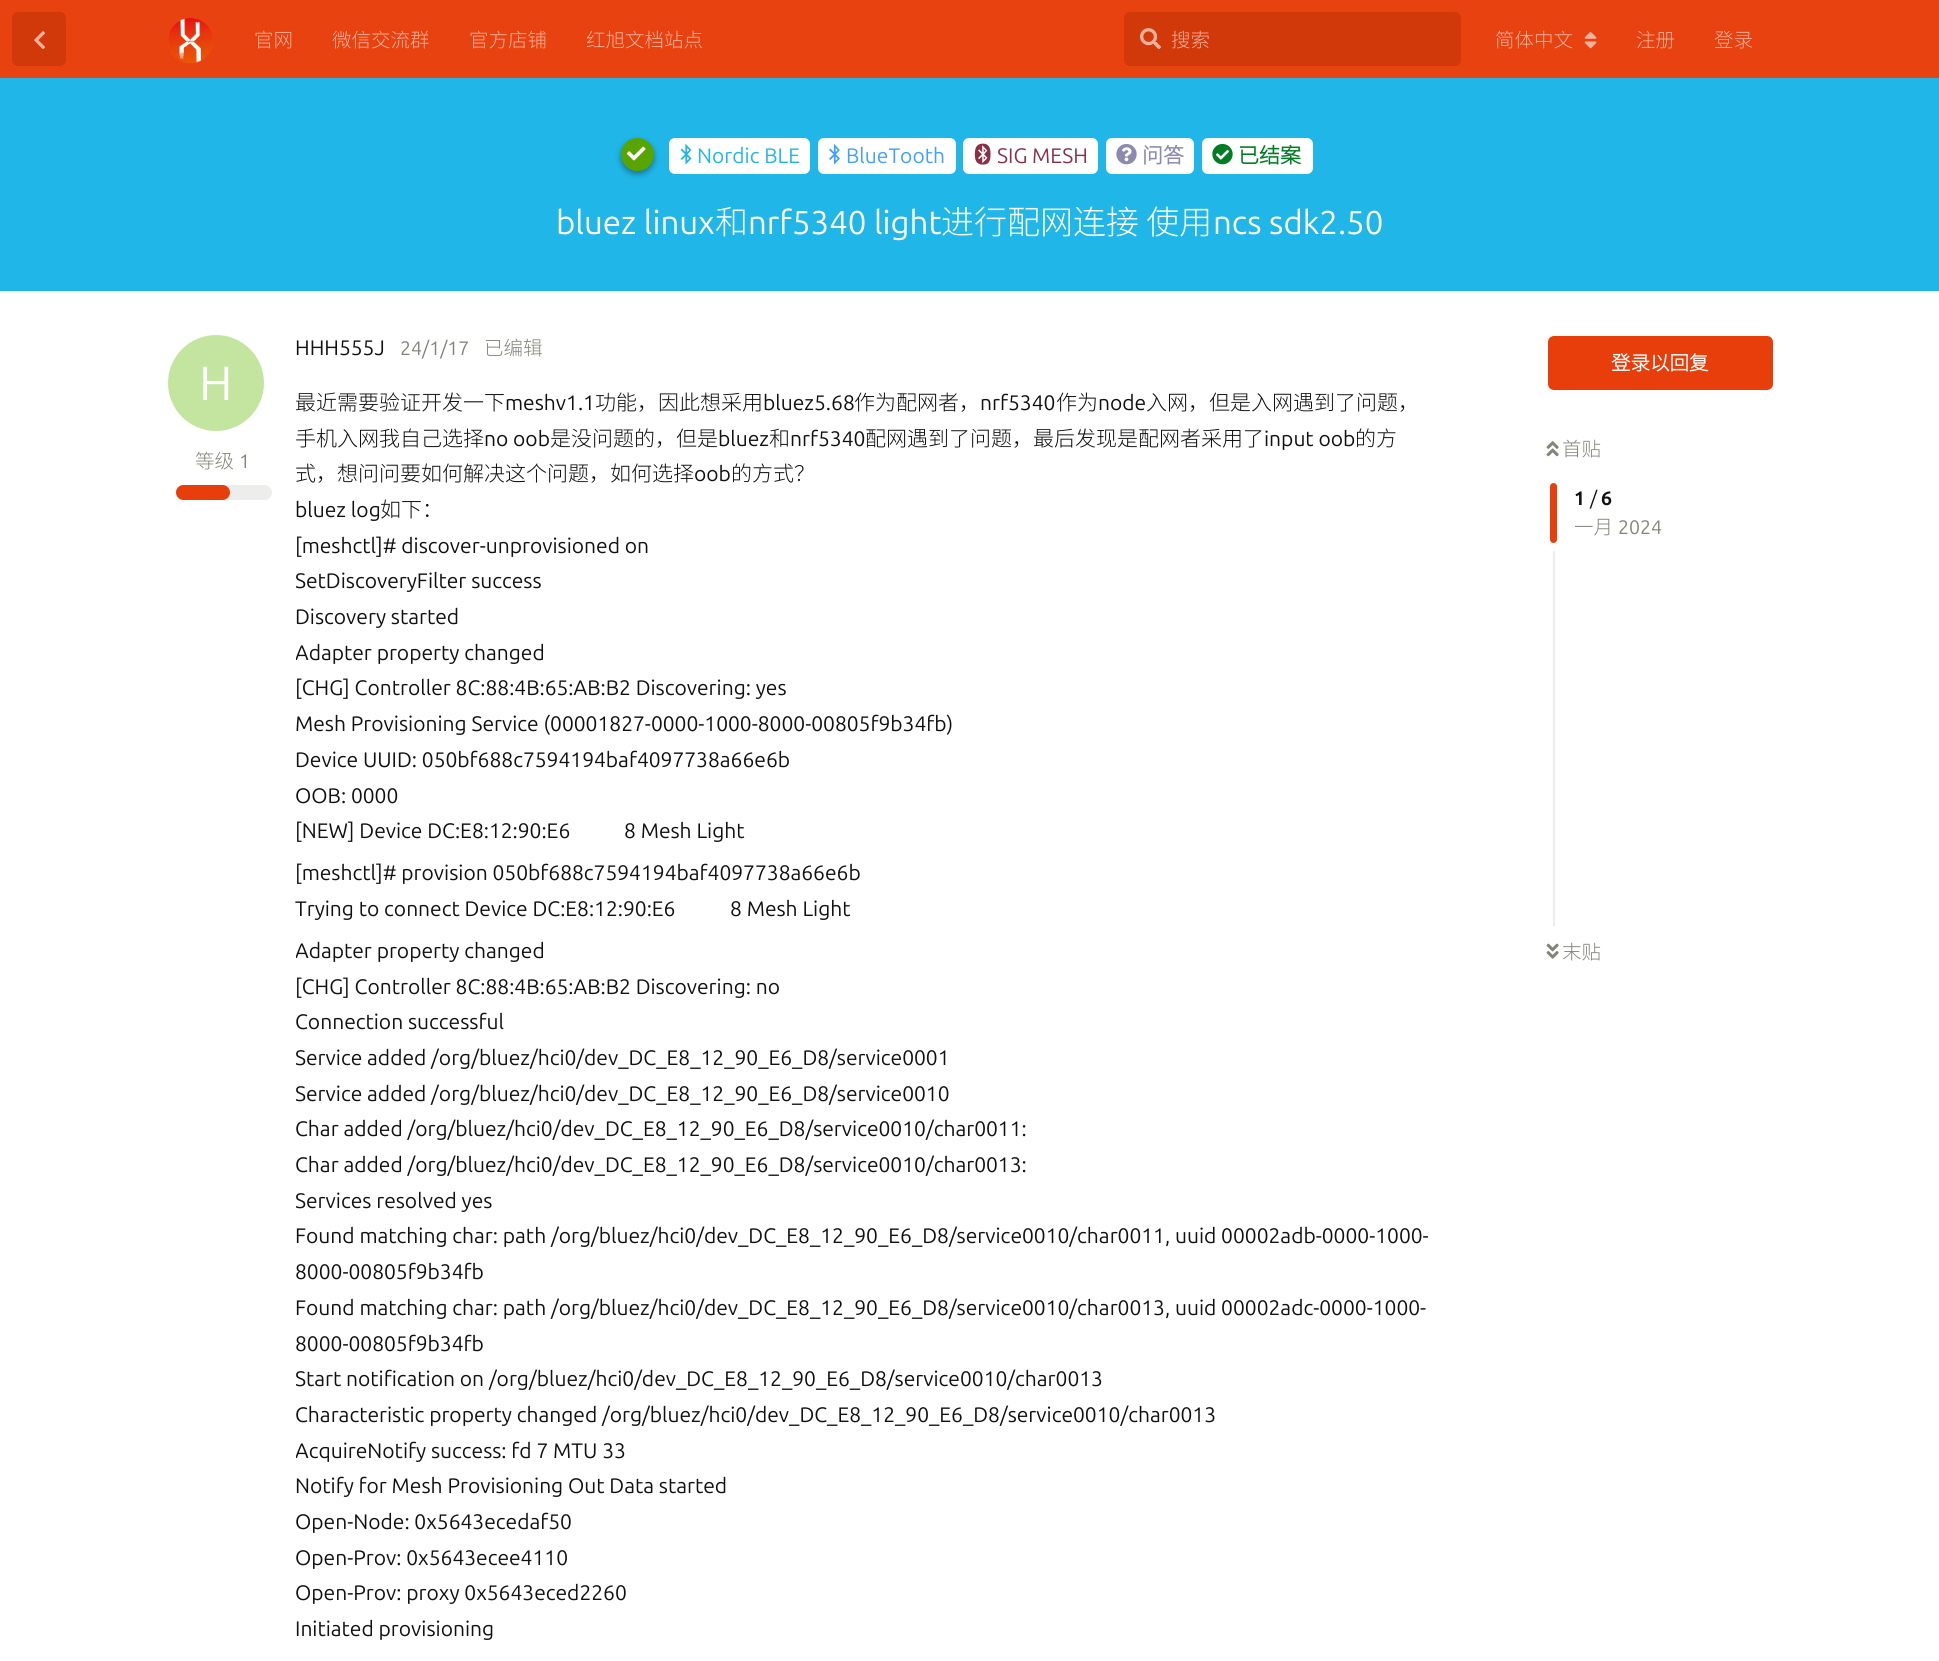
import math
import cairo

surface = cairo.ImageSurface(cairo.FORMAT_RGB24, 1939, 1661)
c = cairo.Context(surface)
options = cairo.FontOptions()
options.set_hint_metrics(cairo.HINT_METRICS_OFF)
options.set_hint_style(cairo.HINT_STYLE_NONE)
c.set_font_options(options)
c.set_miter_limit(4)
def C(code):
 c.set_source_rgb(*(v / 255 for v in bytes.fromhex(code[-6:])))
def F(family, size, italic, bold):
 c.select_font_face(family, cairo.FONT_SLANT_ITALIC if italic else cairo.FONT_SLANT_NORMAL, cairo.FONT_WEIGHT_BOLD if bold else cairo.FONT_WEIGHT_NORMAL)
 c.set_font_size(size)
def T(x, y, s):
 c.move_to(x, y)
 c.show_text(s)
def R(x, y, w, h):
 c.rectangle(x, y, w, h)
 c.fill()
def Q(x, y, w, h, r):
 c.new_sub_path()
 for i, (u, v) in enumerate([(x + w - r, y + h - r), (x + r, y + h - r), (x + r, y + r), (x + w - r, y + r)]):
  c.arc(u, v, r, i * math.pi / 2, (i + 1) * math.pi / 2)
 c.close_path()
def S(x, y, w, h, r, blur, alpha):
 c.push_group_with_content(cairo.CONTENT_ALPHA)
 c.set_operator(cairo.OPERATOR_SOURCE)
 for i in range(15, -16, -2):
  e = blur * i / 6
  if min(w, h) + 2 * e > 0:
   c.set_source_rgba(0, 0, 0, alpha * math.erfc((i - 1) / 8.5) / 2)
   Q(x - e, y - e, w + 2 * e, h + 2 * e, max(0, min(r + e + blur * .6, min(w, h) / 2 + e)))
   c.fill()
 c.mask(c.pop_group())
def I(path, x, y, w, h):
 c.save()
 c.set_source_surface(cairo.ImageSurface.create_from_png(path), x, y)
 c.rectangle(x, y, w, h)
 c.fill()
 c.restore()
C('ffffff')
c.paint()
C('e84210')
R(0,0,1939,78)
C('d1380a')
Q(12,12,54,54,6)
c.fill()
I('1.png',34,31,11,18)
I('2.png',168,18,45,45)
F('Noto Sans CJK SC Light',19.5,0,0)
C('f6b29d')
T(254,47,'官网')
T(332,47,'微信交流群')
T(469,47,'官方店铺')
T(586,47,'红旭文档站点')
C('d1380a')
Q(1124,12,337,54,6)
c.fill()
I('3.png',1140,28,21,22)
C('f6b29d')
T(1171,47,'搜索')
T(1495,47,'简体中文')
I('4.png',1584,32,13,17)
T(1636,47,'注册')
T(1714,47,'登录')
C('20b6e7')
R(0,78,1939,213)
C('000000')
S(621,141,33,33,16.5,3,.35)
C('58a400')
c.arc(637.5,154.5,16.5,0,2 * math.pi)
c.fill()
I('5.png',627,146,19,15)
C('ffffff')
Q(669,138,141,36,6)
c.fill()
I('6.png',680,143,12,22)
F('Ubuntu',21,0,0)
C('20b6e7')
T(697,163,'Nordic BLE')
C('ffffff')
Q(818,138,138,36,6)
c.fill()
I('7.png',829,143,11,22)
C('40a0fc')
T(846,163,'BlueTooth')
C('ffffff')
Q(963,138,135,36,6)
c.fill()
I('8.png',974,143,17,22)
C('893049')
T(997,163,'SIG MESH')
C('ffffff')
Q(1106,138,88,36,6)
c.fill()
I('9.png',1116,144,21,21)
F('Noto Sans CJK SC',21,0,1)
C('8c8ab1')
T(1142,163,'问答')
C('ffffff')
Q(1202,138,111,36,6)
c.fill()
I('10.png',1212,144,21,21)
C('017c23')
T(1238,163,'已结案')
F('Ubuntu',33,0,0)
C('ffffff')
T(556,234,'bluez linux')
F('Noto Sans CJK SC Light',33,0,0)
T(715,234,'和')
F('Ubuntu',33,0,0)
T(748,234,'nrf5340 light')
F('Noto Sans CJK SC Light',33,0,0)
T(941,234,'进行配网连接 使用')
F('Ubuntu',33,0,0)
T(1213,234,'ncs sdk2.50')
F('Ubuntu',21,0,0)
C('111111')
T(295,355,'HHH555J')
C('c4e5a0')
c.new_path()
c.arc(216,383,48,0,2 * math.pi)
c.fill()
F('Ubuntu',48,0,0)
C('ffffff')
T(199,400,'H')
F('Noto Sans CJK SC Light',19.5,0,0)
C('828679')
T(195,468,'等级')
F('Ubuntu',19.5,0,0)
T(239,468,'1')
C('edeeec')
Q(176,485,96,15,7.5)
c.fill()
C('e83e0b')
Q(176,485,54,15,7.5)
c.fill()
C('828679')
T(400,355,'24/1/17')
F('Noto Sans CJK SC Light',19.5,0,0)
T(484,355,'已编辑')
F('Noto Sans CJK SC Light',21,0,0)
C('111111')
T(295,410,'最近需要验证开发一下')
F('Ubuntu',21,0,0)
T(505,410,'meshv1.1')
F('Noto Sans CJK SC Light',21,0,0)
T(595,410,'功能，因此想采用')
F('Ubuntu',21,0,0)
T(763,410,'bluez5.68')
F('Noto Sans CJK SC Light',21,0,0)
T(854,410,'作为配网者，')
F('Ubuntu',21,0,0)
T(980,410,'nrf5340')
F('Noto Sans CJK SC Light',21,0,0)
T(1056,410,'作为')
F('Ubuntu',21,0,0)
T(1098,410,'node')
F('Noto Sans CJK SC Light',21,0,0)
T(1146,410,'入网，但是入网遇到了问题，')
T(295,446,'手机入网我自己选择')
F('Ubuntu',21,0,0)
T(484,446,'no oob')
F('Noto Sans CJK SC Light',21,0,0)
T(550,446,'是没问题的，但是')
F('Ubuntu',21,0,0)
T(718,446,'bluez')
F('Noto Sans CJK SC Light',21,0,0)
T(769,446,'和')
F('Ubuntu',21,0,0)
T(790,446,'nrf5340')
F('Noto Sans CJK SC Light',21,0,0)
T(865,446,'配网遇到了问题，最后发现是配网者采用了')
F('Ubuntu',21,0,0)
T(1264,446,'input oob')
F('Noto Sans CJK SC Light',21,0,0)
T(1355,446,'的方')
T(295,481,'式，想问问要如何解决这个问题，如何选择')
F('Ubuntu',21,0,0)
T(694,481,'oob')
F('Noto Sans CJK SC Light',21,0,0)
T(731,481,'的方式？')
F('Ubuntu',21,0,0)
T(295,517,'bluez log')
F('Noto Sans CJK SC Light',21,0,0)
T(380,517,'如下：')
F('Ubuntu',21,0,0)
T(295,553,'[meshctl]# discover-unprovisioned on')
c.save()
c.rectangle(296,386,1140,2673)
c.clip()
T(295,588,'SetDiscoveryFilter success')
c.restore()
T(295,624,'Discovery started')
c.save()
c.rectangle(296,386,1140,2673)
c.clip()
T(295,660,'Adapter property changed')
c.restore()
T(295,695,'[CHG] Controller 8C:88:4B:65:AB:B2 Discovering: yes')
T(295,731,'Mesh Provisioning Service (00001827-0000-1000-8000-00805f9b34fb)')
T(295,767,'Device UUID: 050bf688c7594194baf4097738a66e6b')
T(295,803,'OOB: 0000')
T(295,838,'[NEW] Device DC:E8:12:90:E6')
T(624,838,'8 Mesh Light')
T(295,880,'[meshctl]# provision 050bf688c7594194baf4097738a66e6b')
T(295,916,'Trying to connect Device DC:E8:12:90:E6')
T(730,916,'8 Mesh Light')
c.save()
c.rectangle(296,386,1140,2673)
c.clip()
T(295,958,'Adapter property changed')
c.restore()
T(295,994,'[CHG] Controller 8C:88:4B:65:AB:B2 Discovering: no')
T(295,1029,'Connection successful')
c.save()
c.rectangle(296,386,1140,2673)
c.clip()
T(295,1065,'Service added /org/bluez/hci0/dev_DC_E8_12_90_E6_D8/service0001')
T(295,1101,'Service added /org/bluez/hci0/dev_DC_E8_12_90_E6_D8/service0010')
c.restore()
T(295,1136,'Char added /org/bluez/hci0/dev_DC_E8_12_90_E6_D8/service0010/char0011:')
T(295,1172,'Char added /org/bluez/hci0/dev_DC_E8_12_90_E6_D8/service0010/char0013:')
c.save()
c.rectangle(296,386,1140,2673)
c.clip()
T(295,1208,'Services resolved yes')
c.restore()
T(295,1243,'Found matching char: path /org/bluez/hci0/dev_DC_E8_12_90_E6_D8/service0010/char0011, uuid 00002adb-0000-1000-')
T(295,1279,'8000-00805f9b34fb')
T(295,1315,'Found matching char: path /org/bluez/hci0/dev_DC_E8_12_90_E6_D8/service0010/char0013, uuid 00002adc-0000-1000-')
T(295,1351,'8000-00805f9b34fb')
c.save()
c.rectangle(296,386,1140,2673)
c.clip()
T(295,1386,'Start notification on /org/bluez/hci0/dev_DC_E8_12_90_E6_D8/service0010/char0013')
c.restore()
T(295,1422,'Characteristic property changed /org/bluez/hci0/dev_DC_E8_12_90_E6_D8/service0010/char0013')
c.save()
c.rectangle(296,386,1140,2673)
c.clip()
T(295,1458,'AcquireNotify success: fd 7 MTU 33')
c.restore()
T(295,1493,'Notify for Mesh Provisioning Out Data started')
T(295,1529,'Open-Node: 0x5643ecedaf50')
T(295,1565,'Open-Prov: 0x5643ecee4110')
T(295,1600,'Open-Prov: proxy 0x5643eced2260')
T(295,1636,'Initiated provisioning')
C('e83e0b')
Q(1548,336,225,54,6)
c.fill()
F('Noto Sans CJK SC',19.5,0,1)
C('ffffff')
T(1611,370,'登录以回复')
I('11.png',1546,441,13,16)
F('Noto Sans CJK SC Light',19.5,0,0)
C('828679')
T(1562,456,'首贴')
C('e83e0b')
Q(1550,483,7,60,3.5)
c.fill()
F('Ubuntu',19.5,0,1)
C('111111')
T(1574,505,'1')
F('Ubuntu',19.5,0,0)
T(1590,505,'/')
F('Ubuntu',19.5,0,1)
T(1601,505,'6')
F('Noto Sans CJK SC Light',19.5,0,0)
C('828679')
T(1574,534,'一月')
F('Ubuntu',19.5,0,0)
T(1618,534,'2024')
C('edeeec')
R(1553,551,2,375)
I('12.png',1546,943,13,16)
F('Noto Sans CJK SC Light',19.5,0,0)
C('828679')
T(1562,959,'末贴')
surface.write_to_png('o.png')
